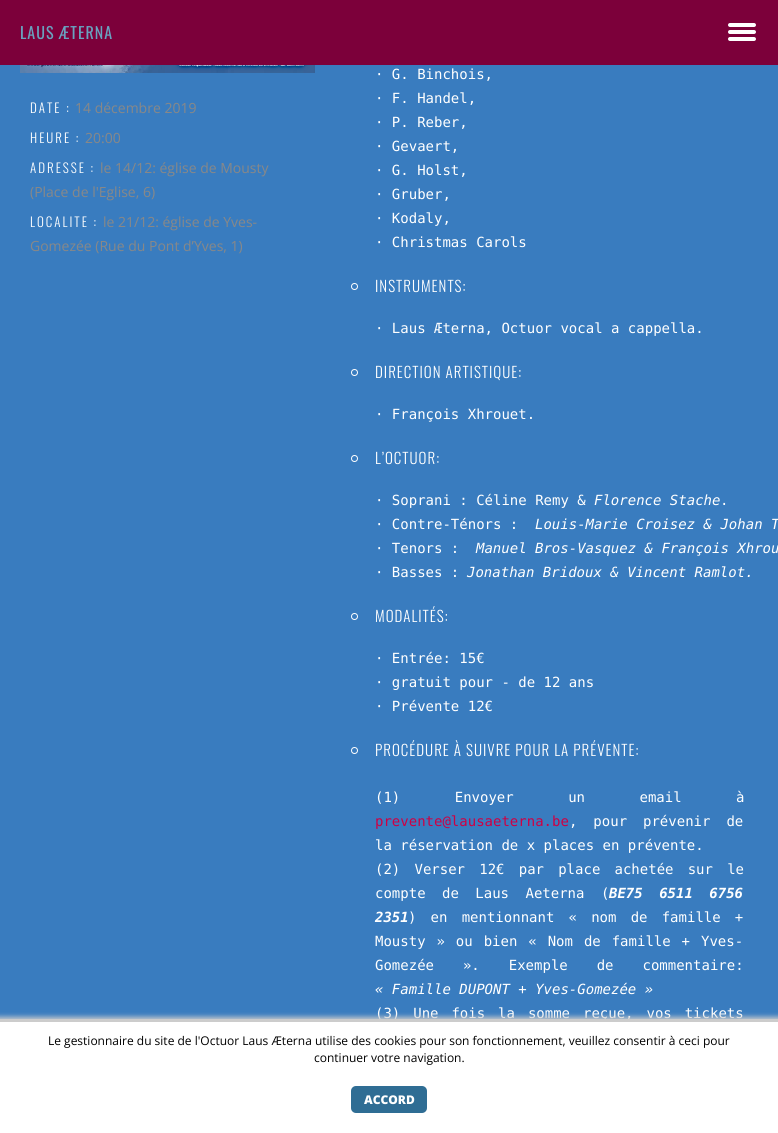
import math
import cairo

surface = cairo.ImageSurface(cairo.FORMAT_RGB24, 778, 1133)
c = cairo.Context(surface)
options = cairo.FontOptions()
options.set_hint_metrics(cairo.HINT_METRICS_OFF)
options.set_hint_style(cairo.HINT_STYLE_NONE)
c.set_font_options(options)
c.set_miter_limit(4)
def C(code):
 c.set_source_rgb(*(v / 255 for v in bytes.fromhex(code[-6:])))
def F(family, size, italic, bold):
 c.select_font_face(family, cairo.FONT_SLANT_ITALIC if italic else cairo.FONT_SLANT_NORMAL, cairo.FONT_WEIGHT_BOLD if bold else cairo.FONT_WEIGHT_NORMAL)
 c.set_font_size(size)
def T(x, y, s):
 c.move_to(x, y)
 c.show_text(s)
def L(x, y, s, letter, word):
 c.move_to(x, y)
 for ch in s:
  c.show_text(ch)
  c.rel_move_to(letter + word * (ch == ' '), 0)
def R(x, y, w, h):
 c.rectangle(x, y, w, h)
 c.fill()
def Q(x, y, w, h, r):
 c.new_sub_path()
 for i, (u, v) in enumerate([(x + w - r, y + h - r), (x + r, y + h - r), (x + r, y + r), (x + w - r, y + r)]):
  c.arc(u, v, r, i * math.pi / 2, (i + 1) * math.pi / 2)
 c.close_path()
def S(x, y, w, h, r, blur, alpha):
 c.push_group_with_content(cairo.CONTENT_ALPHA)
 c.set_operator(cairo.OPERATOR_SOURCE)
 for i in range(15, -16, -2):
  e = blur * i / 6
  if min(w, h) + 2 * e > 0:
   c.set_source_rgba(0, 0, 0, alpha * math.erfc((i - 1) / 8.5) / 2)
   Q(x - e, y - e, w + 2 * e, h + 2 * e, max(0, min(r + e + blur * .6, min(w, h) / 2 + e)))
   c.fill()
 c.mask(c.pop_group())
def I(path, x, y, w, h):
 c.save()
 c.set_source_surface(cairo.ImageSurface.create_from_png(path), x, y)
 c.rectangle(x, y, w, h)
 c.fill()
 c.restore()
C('397cbf')
c.paint()
C('7c003a')
R(0,0,778,65)
F('Oswald',16,0,0)
C('69a2bf')
L(20,39,'LAUS ÆTERNA',1,0)
C('ffffff')
Q(728,23,28,4,2)
c.fill()
Q(728,30,28,4,2)
c.fill()
Q(728,37,28,4,2)
c.fill()
I('1.png',20,65,295,8)
F('Oswald Light',13,0,0)
L(30,113,'DATE :',2,0)
F('Open Sans',14,0,0)
C('888888')
T(75,113,'14 décembre 2019')
F('Oswald Light',13,0,0)
C('ffffff')
L(30,143,'HEURE :',2,0)
F('Open Sans',14,0,0)
C('888888')
T(85,143,'20:00')
F('Oswald Light',13,0,0)
C('ffffff')
L(30,173,'ADRESSE :',2,0)
F('Open Sans',14,0,0)
C('888888')
T(100,173,'le 14/12: église de Mousty')
T(30,197,'(Place de l\'Eglise, 6)')
F('Oswald Light',13,0,0)
C('ffffff')
L(30,227,'LOCALITE :',2,0)
F('Open Sans',14,0,0)
C('888888')
T(103,227,'le 21/12: église de Yves-')
T(30,251,'Gomezée (Rue du Pont d’Yves, 1)')
F('DejaVu Sans Mono',14,0,0)
C('ffffff')
T(375,79,'⋅ G. Binchois,')
T(375,103,'⋅ F. Handel,')
T(375,127,'⋅ P. Reber,')
T(375,151,'⋅ Gevaert,')
T(375,175,'⋅ G. Holst,')
T(375,199,'⋅ Gruber,')
T(375,223,'⋅ Kodaly,')
T(375,247,'⋅ Christmas Carols')
c.new_path()
c.arc(354.5,286.5,3,0,2 * math.pi)
c.set_line_width(1)
c.stroke()
F('Oswald Light',15,0,0)
L(375,292,'INSTRUMENTS:',1,0)
F('DejaVu Sans Mono',14,0,0)
T(375,333,'⋅ Laus Æterna, Octuor vocal a cappella.')
c.new_path()
c.arc(354.5,372.5,3,0,2 * math.pi)
c.stroke()
F('Oswald Light',15,0,0)
L(375,378,'DIRECTION ARTISTIQUE:',1,0)
F('DejaVu Sans Mono',14,0,0)
T(375,419,'⋅ François Xhrouet.')
c.new_path()
c.arc(354.5,458.5,3,0,2 * math.pi)
c.stroke()
F('Oswald Light',15,0,0)
L(375,464,'L’OCTUOR:',1,0)
F('DejaVu Sans Mono',14,0,0)
T(375,505,'⋅ Soprani : Céline Remy &')
F('DejaVu Sans Mono',14,1,0)
T(594,505,'Florence Stache')
F('DejaVu Sans Mono',14,0,0)
T(720,505,'.')
T(375,529,'⋅ Contre-Ténors :')
F('DejaVu Sans Mono',14,1,0)
T(535,529,'Louis-Marie Croisez & Johan T')
F('DejaVu Sans Mono',14,0,0)
T(375,553,'⋅ Tenors :')
F('DejaVu Sans Mono',14,1,0)
T(476,553,'Manuel Bros-Vasquez & François Xhrou')
F('DejaVu Sans Mono',14,0,0)
T(375,577,'⋅ Basses :')
F('DejaVu Sans Mono',14,1,0)
T(467,577,'Jonathan Bridoux & Vincent Ramlot.')
c.new_path()
c.arc(354.5,616.5,3,0,2 * math.pi)
c.stroke()
F('Oswald Light',15,0,0)
L(375,622,'MODALITÉS:',1,0)
F('DejaVu Sans Mono',14,0,0)
T(375,663,'⋅ Entrée: 15€')
T(375,687,'⋅ gratuit pour - de 12 ans')
T(375,711,'⋅ Prévente 12€')
c.new_path()
c.arc(354.5,750.5,3,0,2 * math.pi)
c.stroke()
F('Oswald Light',15,0,0)
L(375,756,'PROCÉDURE À SUIVRE POUR LA PRÉVENTE:',1,0)
F('DejaVu Sans Mono',14,0,0)
L(375,802,'(1) Envoyer un email à',0,46)
C('ce0044')
T(375,826,'prevente@lausaeterna.be')
C('ffffff')
L(569,826,', pour prévenir de',0,7.5)
T(375,850,'la réservation de x places en prévente.')
L(375,874,'(2) Verser 12€ par place achetée sur le',0,5.75)
L(375,898,'compte de Laus Aeterna (',0,8)
F('DejaVu Sans Mono',14,1,1)
L(609,898,'BE75 6511 6756',0,8)
T(375,922,'2351')
F('DejaVu Sans Mono',14,0,0)
L(408,922,') en mentionnant « nom de famille +',0,5.75)
L(375,946,'Mousty » ou bien « Nom de famille + Yves-',0,2.5)
L(375,970,'Gomezée ». Exemple de commentaire:',0,20.5)
F('DejaVu Sans Mono',14,1,0)
T(375,994,'« Famille DUPONT + Yves-Gomezée »')
F('DejaVu Sans Mono',14,0,0)
L(375,1018,'(3) Une fois la somme reçue, vos tickets',0,4.5)
C('cccccc')
S(-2,1017,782,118,0,2.5,1)
C('ffffff')
R(0,1022,778,111)
C('cccccc')
R(0,1019,778,3)
F('Open Sans',12,0,0)
C('000000')
T(48,1045,'Le gestionnaire du site de l\'Octuor Laus Æterna utilise des cookies pour son fonctionnement, veuillez consentir à ceci pour')
T(314,1062,'continuer votre navigation.')
C('2f6d94')
Q(351,1086,76,27,5)
c.fill()
F('Open Sans ExtraBold',12,0,0)
C('ffffff')
T(364,1104,'ACCORD')
surface.write_to_png('o.png')
